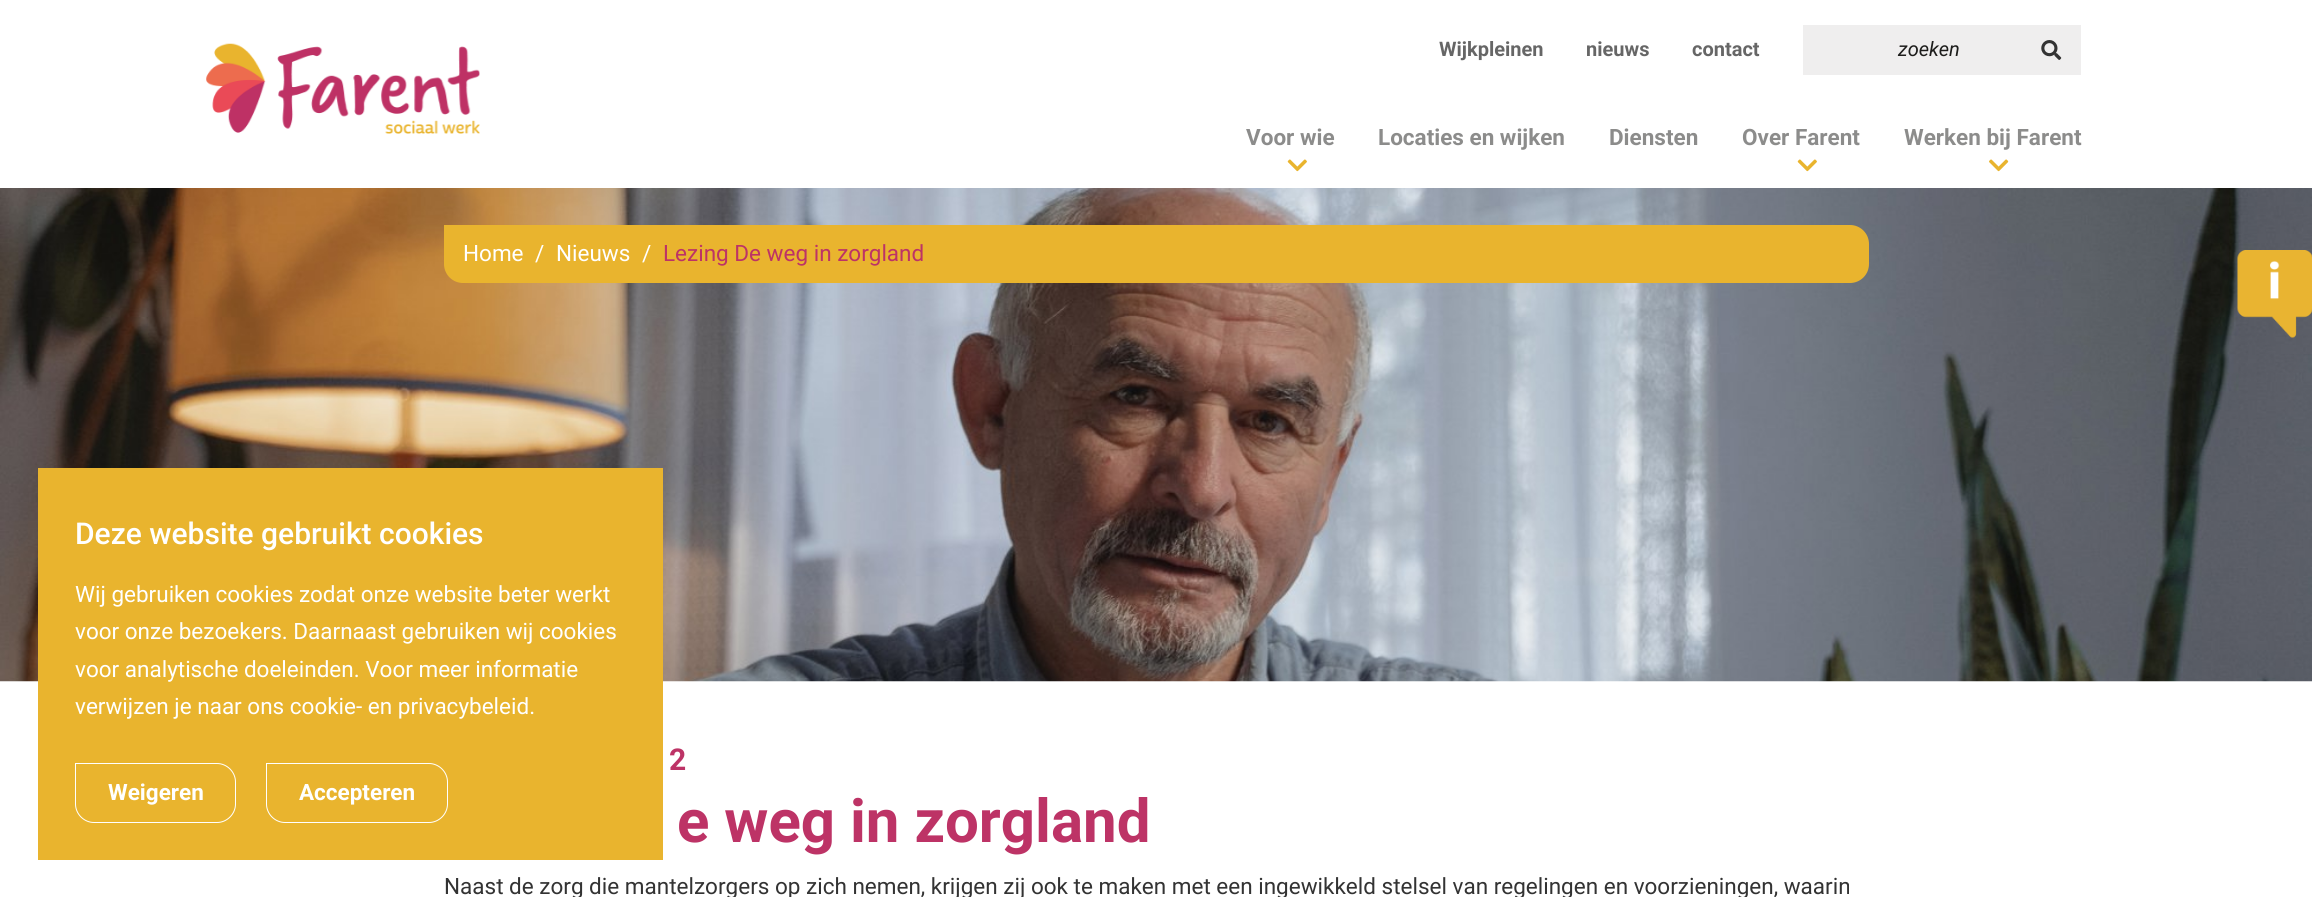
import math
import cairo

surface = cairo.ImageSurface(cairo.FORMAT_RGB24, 2312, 897)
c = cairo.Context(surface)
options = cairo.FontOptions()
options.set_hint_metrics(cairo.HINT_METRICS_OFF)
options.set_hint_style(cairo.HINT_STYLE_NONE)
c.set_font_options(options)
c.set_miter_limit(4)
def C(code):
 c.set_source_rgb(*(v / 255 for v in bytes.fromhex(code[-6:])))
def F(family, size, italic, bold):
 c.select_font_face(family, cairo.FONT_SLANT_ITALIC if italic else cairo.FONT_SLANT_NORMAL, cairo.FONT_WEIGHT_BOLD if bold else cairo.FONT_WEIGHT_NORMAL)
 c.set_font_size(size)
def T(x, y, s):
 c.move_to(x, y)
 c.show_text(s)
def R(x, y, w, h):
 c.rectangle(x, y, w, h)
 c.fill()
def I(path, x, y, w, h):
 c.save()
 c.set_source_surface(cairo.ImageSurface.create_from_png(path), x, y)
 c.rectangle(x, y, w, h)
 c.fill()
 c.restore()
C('ffffff')
c.paint()
I('6.png',0,188,2312,494)
C('e9b42e')
R(38,468,625,392)
F('Roboto Medium',30,0,0)
C('ffffff')
T(75,544,'Deze website gebruikt cookies')
F('Roboto',22.5,0,0)
T(75,602,'Wij gebruiken cookies zodat onze website beter werkt')
T(75,639,'voor onze bezoekers. Daarnaast gebruiken wij cookies')
T(75,677,'voor analytische doeleinden. Voor meer informatie')
T(75,714,'verwijzen je naar ons cookie- en privacybeleid.')
c.new_path()
c.move_to(75.5,763.5)
c.line_to(217,763.5)
c.curve_to(227,763.5,235.5,772,235.5,782)
c.line_to(235.5,804)
c.curve_to(235.5,814,227,822.5,217,822.5)
c.line_to(94,822.5)
c.curve_to(84,822.5,75.5,814,75.5,804)
c.close_path()
c.set_line_width(1)
c.stroke()
F('Roboto',22.5,0,1)
T(108,800,'Weigeren')
c.new_path()
c.move_to(266.5,763.5)
c.line_to(429,763.5)
c.curve_to(439,763.5,447.5,772,447.5,782)
c.line_to(447.5,804)
c.curve_to(447.5,814,439,822.5,429,822.5)
c.line_to(285,822.5)
c.curve_to(275,822.5,266.5,814,266.5,804)
c.close_path()
c.stroke()
T(299,800,'Accepteren')
I('1.png',206,43,274,91)
F('Roboto',20,0,1)
C('666666')
T(1439,56,'Wijkpleinen')
T(1586,56,'nieuws')
T(1692,56,'contact')
C('efeeee')
R(1803,25,278,50)
F('Roboto',20,1,0)
C('1d1d1b')
T(1898,56,'zoeken')
I('2.png',2041,40,21,20)
F('Roboto',22.5,0,1)
C('8c8c8b')
T(1246,145,'Voor wie')
I('3.png',1287,159,20,13)
T(1378,145,'Locaties en wijken')
T(1609,145,'Diensten')
T(1742,145,'Over Farent')
I('3.png',1797,159,20,13)
T(1904,145,'Werken bij Farent')
I('4.png',1989,159,20,13)
I('5.png',2237,250,75,88)
C('e9b42e')
c.new_path()
c.move_to(444,225)
c.line_to(1850,225)
c.curve_to(1860.5,225,1869,233.5,1869,244)
c.line_to(1869,264)
c.curve_to(1869,274.5,1860.5,283,1850,283)
c.line_to(463,283)
c.curve_to(452.5,283,444,274.5,444,264)
c.close_path()
c.fill()
F('Roboto',22.5,0,0)
C('ffffff')
T(463,261,'Home')
T(535,261,'/')
T(556,261,'Nieuws')
T(642,261,'/')
C('bd3366')
T(663,261,'Lezing De weg in zorgland')
F('Roboto',30,0,1)
T(669,770,'2')
F('Roboto',60,0,1)
T(677,842,'e weg in zorgland')
F('Roboto',22.5,0,0)
C('333333')
T(444,894,'Naast de zorg die mantelzorgers op zich nemen, krijgen zij ook te maken met een ingewikkeld stelsel van regelingen en voorzieningen, waarin')
surface.write_to_png('o.png')
